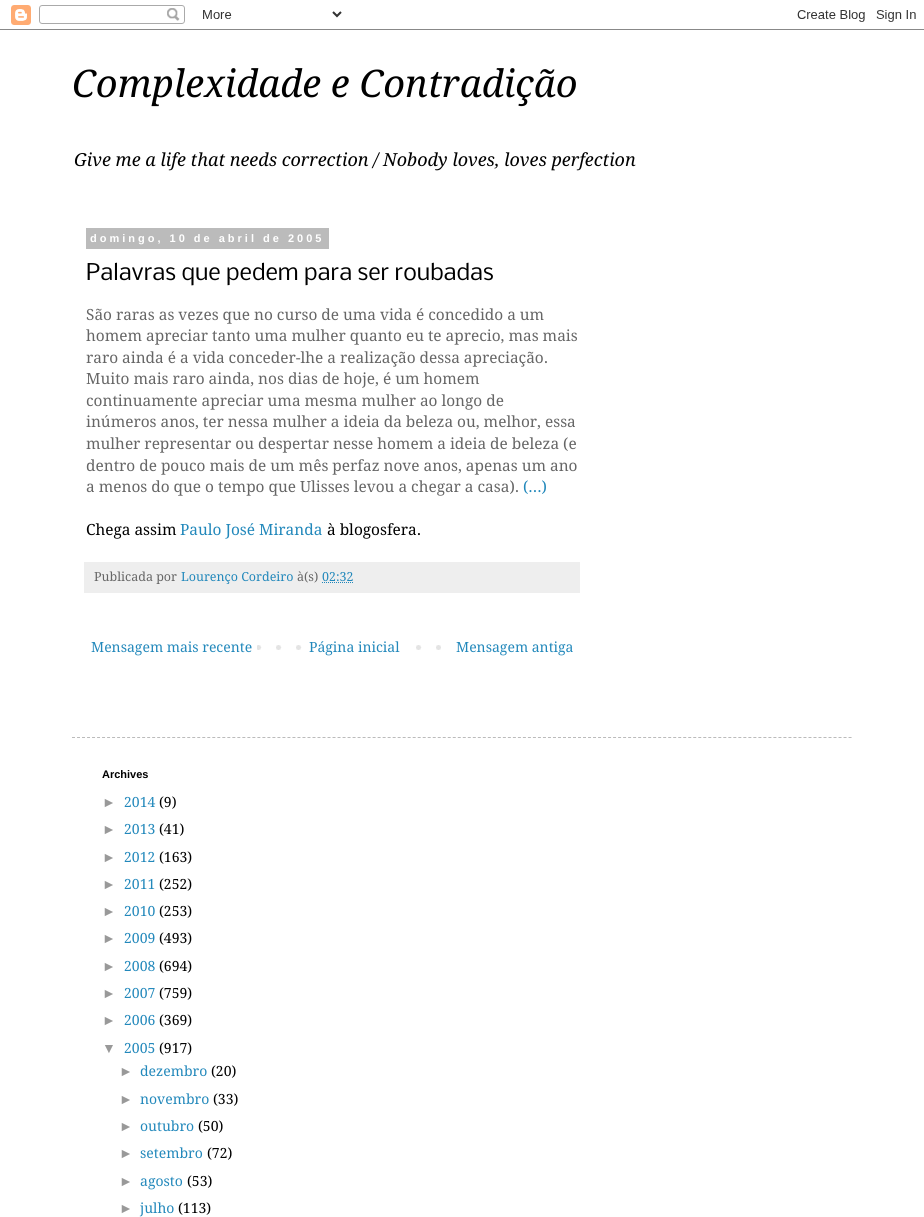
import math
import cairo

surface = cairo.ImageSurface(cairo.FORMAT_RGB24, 924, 1217)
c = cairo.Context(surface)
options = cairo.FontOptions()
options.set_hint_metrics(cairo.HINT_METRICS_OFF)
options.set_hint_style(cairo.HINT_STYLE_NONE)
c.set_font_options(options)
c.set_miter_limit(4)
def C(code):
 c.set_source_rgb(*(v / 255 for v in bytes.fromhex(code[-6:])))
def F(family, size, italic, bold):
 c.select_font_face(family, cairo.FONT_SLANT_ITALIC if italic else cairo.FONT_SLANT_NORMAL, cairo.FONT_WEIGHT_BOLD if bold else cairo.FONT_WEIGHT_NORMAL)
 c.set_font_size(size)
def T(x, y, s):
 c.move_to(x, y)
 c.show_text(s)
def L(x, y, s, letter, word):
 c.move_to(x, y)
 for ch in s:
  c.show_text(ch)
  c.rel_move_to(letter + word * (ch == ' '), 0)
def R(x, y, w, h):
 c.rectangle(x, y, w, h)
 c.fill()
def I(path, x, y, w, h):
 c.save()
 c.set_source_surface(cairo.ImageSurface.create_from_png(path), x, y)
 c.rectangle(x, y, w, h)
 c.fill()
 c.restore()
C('ffffff')
c.paint()
I('1.png',0,5,924,25)
F('Droid Serif',38,1,0)
C('000000')
T(72,97,'Complexidade e Contradição')
F('Droid Serif',18,1,0)
T(74,166,'Give me a life that needs correction / Nobody loves, loves perfection')
C('bbbbbb')
R(86,228,243,21)
F('Liberation Sans',11,0,1)
C('ffffff')
L(90,242,'domingo, 10 de abril de 2005',3,0)
F('Nobile',22,0,0)
C('000000')
T(86,280,'Palavras que pedem para ser roubadas')
F('Droid Serif',15.4,0,0)
C('666666')
T(86,320,'São raras as vezes que no curso de uma vida é concedido a um')
T(86,341,'homem apreciar tanto uma mulher quanto eu te aprecio, mas mais')
T(86,363,'raro ainda é a vida conceder-lhe a realização dessa apreciação.')
T(86,384,'Muito mais raro ainda, nos dias de hoje, é um homem')
T(86,406,'continuamente apreciar uma mesma mulher ao longo de')
T(86,427,'inúmeros anos, ter nessa mulher a ideia da beleza ou, melhor, essa')
T(86,449,'mulher representar ou despertar nesse homem a ideia de beleza (e')
T(86,471,'dentro de pouco mais de um mês perfaz nove anos, apenas um ano')
T(86,492,'a menos do que o tempo que Ulisses levou a chegar a casa).')
C('2288bb')
T(523,492,'(...)')
C('000000')
T(86,535,'Chega assim')
C('2288bb')
T(180,535,'Paulo José Miranda')
C('000000')
T(327,535,'à blogosfera.')
C('eeeeee')
R(84,562,496,31)
F('Droid Serif',12.5,0,0)
C('666666')
T(94,581,'Publicada por')
C('2288bb')
T(181,581,'Lourenço Cordeiro')
C('666666')
T(297,581,'à(s)')
C('2288bb')
T(322,581,'02:32')
c.new_path()
c.move_to(322,582.5)
c.line_to(354,582.5)
c.set_line_width(1)
c.set_dash([1,1])
c.stroke()
I('2.png',257,645,184,5)
F('Droid Serif',14,0,0)
T(91,652,'Mensagem mais recente')
C('ffffff')
R(316,645,86,5)
C('2288bb')
T(309,652,'Página inicial')
T(456,652,'Mensagem antiga')
c.new_path()
c.move_to(72,737.5)
c.line_to(852,737.5)
C('bbbbbb')
c.set_dash([3,2.01])
c.stroke()
F('Liberation Sans',11,0,1)
C('000000')
T(102,778,'Archives')
F('Liberation Sans',14,0,0)
C('999999')
T(102,807,'►')
F('Droid Serif',14,0,0)
C('2288bb')
T(124,807,'2014')
C('000000')
T(159,807,'(9)')
F('Liberation Sans',14,0,0)
C('999999')
T(102,834,'►')
F('Droid Serif',14,0,0)
C('2288bb')
T(124,834,'2013')
C('000000')
T(159,834,'(41)')
F('Liberation Sans',14,0,0)
C('999999')
T(102,862,'►')
F('Droid Serif',14,0,0)
C('2288bb')
T(124,862,'2012')
C('000000')
T(159,862,'(163)')
F('Liberation Sans',14,0,0)
C('999999')
T(102,889,'►')
F('Droid Serif',14,0,0)
C('2288bb')
T(124,889,'2011')
C('000000')
T(159,889,'(252)')
F('Liberation Sans',14,0,0)
C('999999')
T(102,916,'►')
F('Droid Serif',14,0,0)
C('2288bb')
T(124,916,'2010')
C('000000')
T(159,916,'(253)')
F('Liberation Sans',14,0,0)
C('999999')
T(102,943,'►')
F('Droid Serif',14,0,0)
C('2288bb')
T(124,943,'2009')
C('000000')
T(159,943,'(493)')
F('Liberation Sans',14,0,0)
C('999999')
T(102,971,'►')
F('Droid Serif',14,0,0)
C('2288bb')
T(124,971,'2008')
C('000000')
T(159,971,'(694)')
F('Liberation Sans',14,0,0)
C('999999')
T(102,998,'►')
F('Droid Serif',14,0,0)
C('2288bb')
T(124,998,'2007')
C('000000')
T(159,998,'(759)')
F('Liberation Sans',14,0,0)
C('999999')
T(102,1025,'►')
F('Droid Serif',14,0,0)
C('2288bb')
T(124,1025,'2006')
C('000000')
T(159,1025,'(369)')
F('Liberation Sans',14,0,0)
C('999999')
T(102,1053,'▼')
F('Droid Serif',14,0,0)
C('2288bb')
T(124,1053,'2005')
C('000000')
T(159,1053,'(917)')
F('Liberation Sans',14,0,0)
C('999999')
T(119,1076,'►')
F('Droid Serif',14,0,0)
C('2288bb')
T(140,1076,'dezembro')
C('000000')
T(211,1076,'(20)')
F('Liberation Sans',14,0,0)
C('999999')
T(119,1104,'►')
F('Droid Serif',14,0,0)
C('2288bb')
T(140,1104,'novembro')
C('000000')
T(213,1104,'(33)')
F('Liberation Sans',14,0,0)
C('999999')
T(119,1131,'►')
F('Droid Serif',14,0,0)
C('2288bb')
T(140,1131,'outubro')
C('000000')
T(198,1131,'(50)')
F('Liberation Sans',14,0,0)
C('999999')
T(119,1158,'►')
F('Droid Serif',14,0,0)
C('2288bb')
T(140,1158,'setembro')
C('000000')
T(207,1158,'(72)')
F('Liberation Sans',14,0,0)
C('999999')
T(119,1186,'►')
F('Droid Serif',14,0,0)
C('2288bb')
T(140,1186,'agosto')
C('000000')
T(187,1186,'(53)')
F('Liberation Sans',14,0,0)
C('999999')
T(119,1213,'►')
F('Droid Serif',14,0,0)
C('2288bb')
T(140,1213,'julho')
C('000000')
T(178,1213,'(113)')
surface.write_to_png('o.png')
